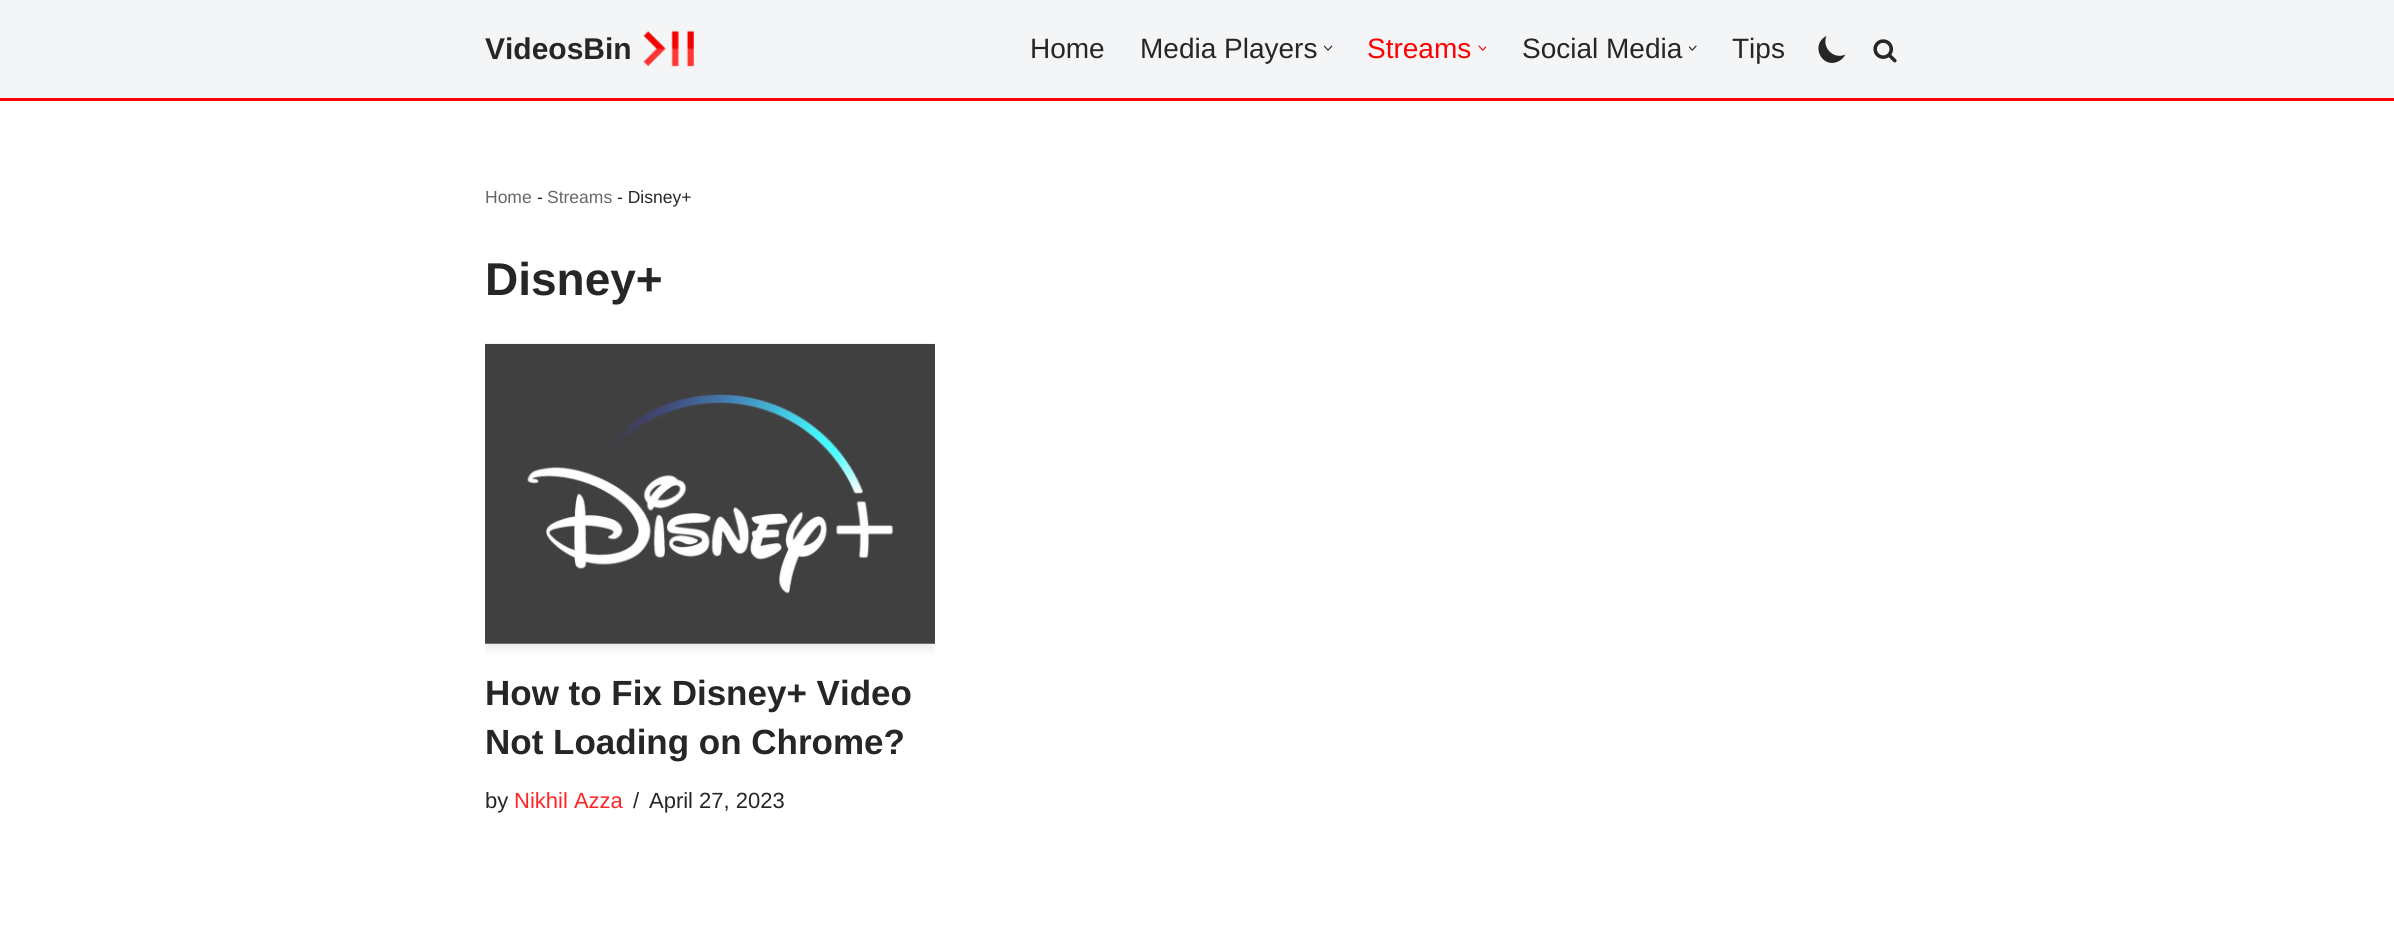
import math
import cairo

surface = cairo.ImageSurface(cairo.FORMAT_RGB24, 2394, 948)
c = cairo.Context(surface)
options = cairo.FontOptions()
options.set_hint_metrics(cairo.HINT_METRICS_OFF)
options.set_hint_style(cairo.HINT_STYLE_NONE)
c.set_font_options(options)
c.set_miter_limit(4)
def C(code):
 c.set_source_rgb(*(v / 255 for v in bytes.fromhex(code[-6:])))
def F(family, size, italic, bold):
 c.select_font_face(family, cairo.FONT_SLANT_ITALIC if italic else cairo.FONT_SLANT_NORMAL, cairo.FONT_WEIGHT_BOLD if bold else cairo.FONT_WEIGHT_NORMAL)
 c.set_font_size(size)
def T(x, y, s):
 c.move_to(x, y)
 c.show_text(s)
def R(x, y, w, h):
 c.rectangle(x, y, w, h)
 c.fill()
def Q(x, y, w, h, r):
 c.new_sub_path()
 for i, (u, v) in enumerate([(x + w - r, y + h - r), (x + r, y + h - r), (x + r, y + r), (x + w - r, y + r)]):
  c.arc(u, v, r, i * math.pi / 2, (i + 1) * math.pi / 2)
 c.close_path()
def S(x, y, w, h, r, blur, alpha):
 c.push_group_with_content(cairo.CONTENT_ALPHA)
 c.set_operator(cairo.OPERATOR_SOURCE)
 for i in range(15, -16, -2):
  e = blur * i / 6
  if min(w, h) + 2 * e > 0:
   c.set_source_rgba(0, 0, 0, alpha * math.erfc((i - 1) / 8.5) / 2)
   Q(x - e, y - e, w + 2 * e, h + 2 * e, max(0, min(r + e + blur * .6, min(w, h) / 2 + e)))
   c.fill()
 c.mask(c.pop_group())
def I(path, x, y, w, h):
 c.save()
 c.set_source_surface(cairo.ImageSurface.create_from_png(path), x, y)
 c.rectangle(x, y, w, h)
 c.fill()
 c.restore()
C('ffffff')
c.paint()
C('f4f5f7')
R(0,0,2394,98)
C('ff0000')
R(0,98,2394,3)
F('Liberation Sans',30,0,1)
C('272626')
T(485,59,'VideosBin')
I('1.png',643,30,51,37)
F('Liberation Sans',28,0,0)
T(1030,58,'Home')
T(1140,58,'Media Players')
I('2.png',1324,45,9,6)
C('ff0000')
T(1367,58,'Streams')
I('3.png',1478,45,8,6)
C('272626')
T(1522,58,'Social Media')
I('4.png',1689,45,8,6)
T(1732,58,'Tips')
c.new_path()
c.move_to(1845.5,54.5)
c.curve_to(1833.5,60,1821.5,47.5,1826.5,36)
c.curve_to(1810.5,43.5,1820.5,68,1837,62)
c.curve_to(1841,60.5,1843.5,58,1845.5,54.5)
c.close_path()
c.fill()
I('5.png',1873,39,24,24)
F('Liberation Sans',17.5,0,0)
C('676767')
T(485,203,'Home')
C('272626')
T(537,203,'-')
C('676767')
T(547,203,'Streams')
C('272626')
T(617,203,'- Disney+')
F('Liberation Sans',46,0,1)
T(485,295,'Disney+')
c.save()
c.rectangle(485,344,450,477)
c.clip()
c.set_fill_rule(cairo.FILL_RULE_EVEN_ODD)
c.new_path()
c.move_to(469,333)
c.line_to(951,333)
c.line_to(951,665)
c.line_to(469,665)
c.close_path()
c.move_to(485,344)
c.line_to(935,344)
c.line_to(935,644)
c.line_to(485,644)
c.close_path()
c.clip()
C('404040')
S(485,349,450,300,0,5,.1)
c.restore()
I('6.png',485,343,450,301)
F('Liberation Sans',35,0,1)
T(485,705,'How to Fix Disney+ Video')
T(485,754,'Not Loading on Chrome?')
F('Liberation Sans',22,0,0)
T(485,808,'by')
C('fc2626')
T(514,808,'Nikhil Azza')
C('272626')
T(633,808,'/')
T(649,808,'April 27, 2023')
surface.write_to_png('o.png')
